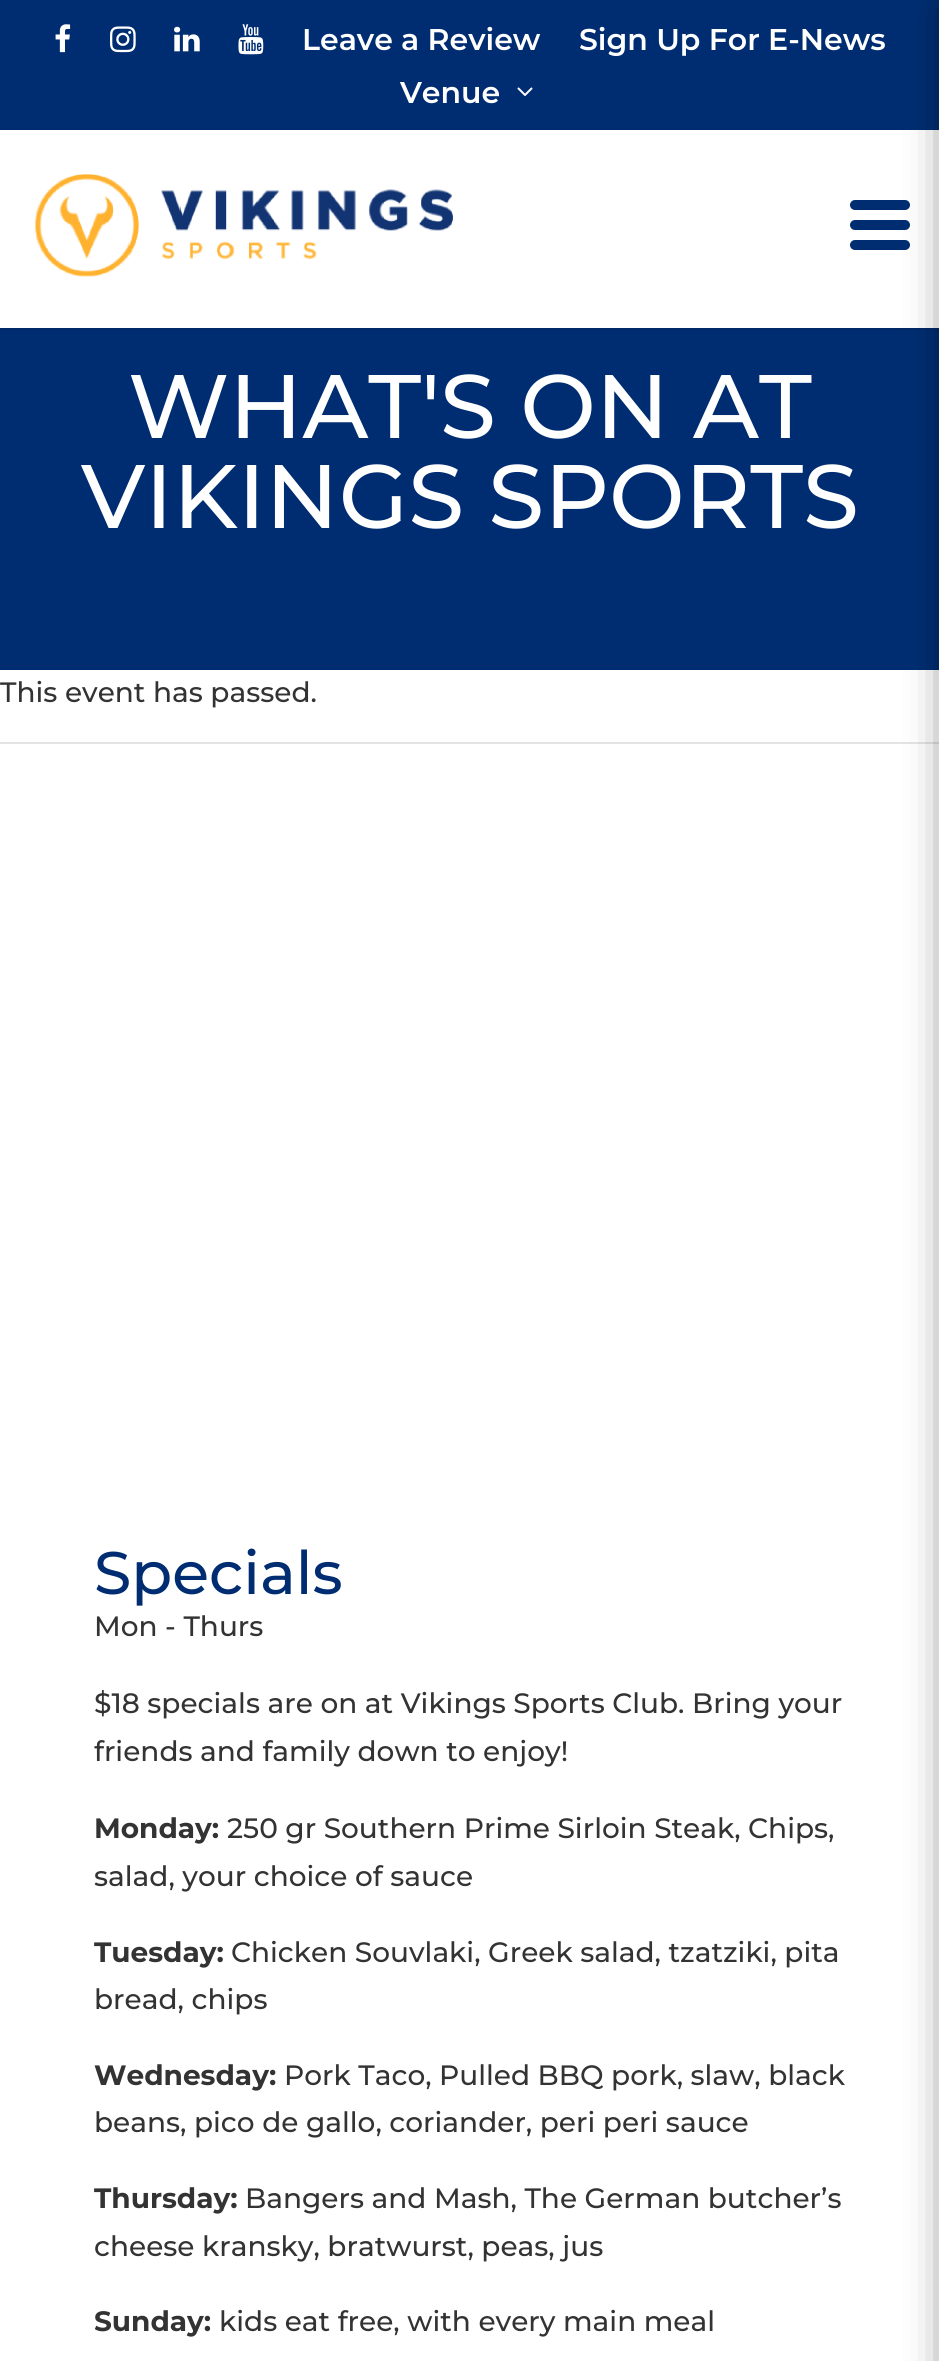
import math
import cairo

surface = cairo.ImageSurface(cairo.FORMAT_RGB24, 939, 2361)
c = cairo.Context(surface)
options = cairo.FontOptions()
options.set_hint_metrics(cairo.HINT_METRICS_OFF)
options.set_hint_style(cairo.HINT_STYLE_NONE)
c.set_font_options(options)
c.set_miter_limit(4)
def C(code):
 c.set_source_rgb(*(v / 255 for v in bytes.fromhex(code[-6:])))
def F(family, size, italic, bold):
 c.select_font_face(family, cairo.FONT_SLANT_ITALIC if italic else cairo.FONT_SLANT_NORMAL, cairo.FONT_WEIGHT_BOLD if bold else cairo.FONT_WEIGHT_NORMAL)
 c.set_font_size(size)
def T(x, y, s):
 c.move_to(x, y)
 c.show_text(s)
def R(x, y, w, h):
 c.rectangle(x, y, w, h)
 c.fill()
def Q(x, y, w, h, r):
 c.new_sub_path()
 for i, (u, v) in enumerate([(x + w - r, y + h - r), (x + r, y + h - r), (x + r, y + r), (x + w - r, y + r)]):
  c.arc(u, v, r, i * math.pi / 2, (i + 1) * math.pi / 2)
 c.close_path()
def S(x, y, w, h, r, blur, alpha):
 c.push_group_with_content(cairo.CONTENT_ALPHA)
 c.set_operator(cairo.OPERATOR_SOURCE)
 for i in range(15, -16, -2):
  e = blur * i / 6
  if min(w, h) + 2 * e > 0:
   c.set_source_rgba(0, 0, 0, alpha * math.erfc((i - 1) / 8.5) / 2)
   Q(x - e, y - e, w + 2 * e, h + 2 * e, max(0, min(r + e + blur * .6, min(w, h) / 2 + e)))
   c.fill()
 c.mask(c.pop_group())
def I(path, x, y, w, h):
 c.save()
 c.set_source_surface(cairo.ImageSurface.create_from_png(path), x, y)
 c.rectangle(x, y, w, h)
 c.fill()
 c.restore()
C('ffffff')
c.paint()
C('002d72')
R(0,0,939,130)
I('1.png',55,24,16,29)
I('2.png',110,26,26,27)
I('3.png',174,26,26,26)
I('4.png',238,24,26,31)
F('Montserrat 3 Thin',30,0,0)
C('ffffff')
T(302,50,'Leave a Review')
T(579,50,'Sign Up For E-News')
T(400,103,'Venue')
I('5.png',517,87,16,9)
C('002967')
R(0,328,939,2)
I('6.png',35,174,418,103)
C('002d72')
Q(850,200,60,10,5)
c.fill()
Q(850,220,60,10,5)
c.fill()
Q(850,240,60,10,5)
c.fill()
R(0,330,939,340)
F('Montserrat Thin',90,0,0)
C('ffffff')
T(128,438,'WHAT\'S ON AT')
T(81,528,'VIKINGS SPORTS')
C('e4e4e4')
R(0,742,939,2)
F('Montserrat Thin',28,0,0)
C('333333')
T(0,702,'This event has passed.')
F('Montserrat Thin',60,0,0)
C('002d72')
T(94,1594,'Specials')
F('Montserrat Thin',28,0,0)
C('333333')
T(94,1636,'Mon - Thurs')
T(94,1713,'$18 specials are on at Vikings Sports Club. Bring your')
T(94,1761,'friends and family down to enjoy!')
F('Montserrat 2 Thin',28,0,0)
T(94,1838,'Monday:')
F('Montserrat Thin',28,0,0)
T(227,1838,'250 gr Southern Prime Sirloin Steak, Chips,')
T(94,1886,'salad, your choice of sauce')
F('Montserrat 2 Thin',28,0,0)
T(94,1962,'Tuesday:')
F('Montserrat Thin',28,0,0)
T(231,1962,'Chicken Souvlaki, Greek salad, tzatziki, pita')
T(94,2009,'bread, chips')
F('Montserrat 2 Thin',28,0,0)
T(94,2085,'Wednesday:')
F('Montserrat Thin',28,0,0)
T(284,2085,'Pork Taco, Pulled BBQ pork, slaw, black')
T(94,2132,'beans, pico de gallo, coriander, peri peri sauce')
F('Montserrat 2 Thin',28,0,0)
T(94,2208,'Thursday:')
F('Montserrat Thin',28,0,0)
T(245,2208,'Bangers and Mash, The German butcher’s')
T(94,2256,'cheese kransky, bratwurst, peas, jus')
F('Montserrat 2 Thin',28,0,0)
T(94,2331,'Sunday:')
F('Montserrat Thin',28,0,0)
T(219,2331,'kids eat free, with every main meal')
C('000000')
S(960,12,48,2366,0,23,1)
surface.write_to_png('o.png')
